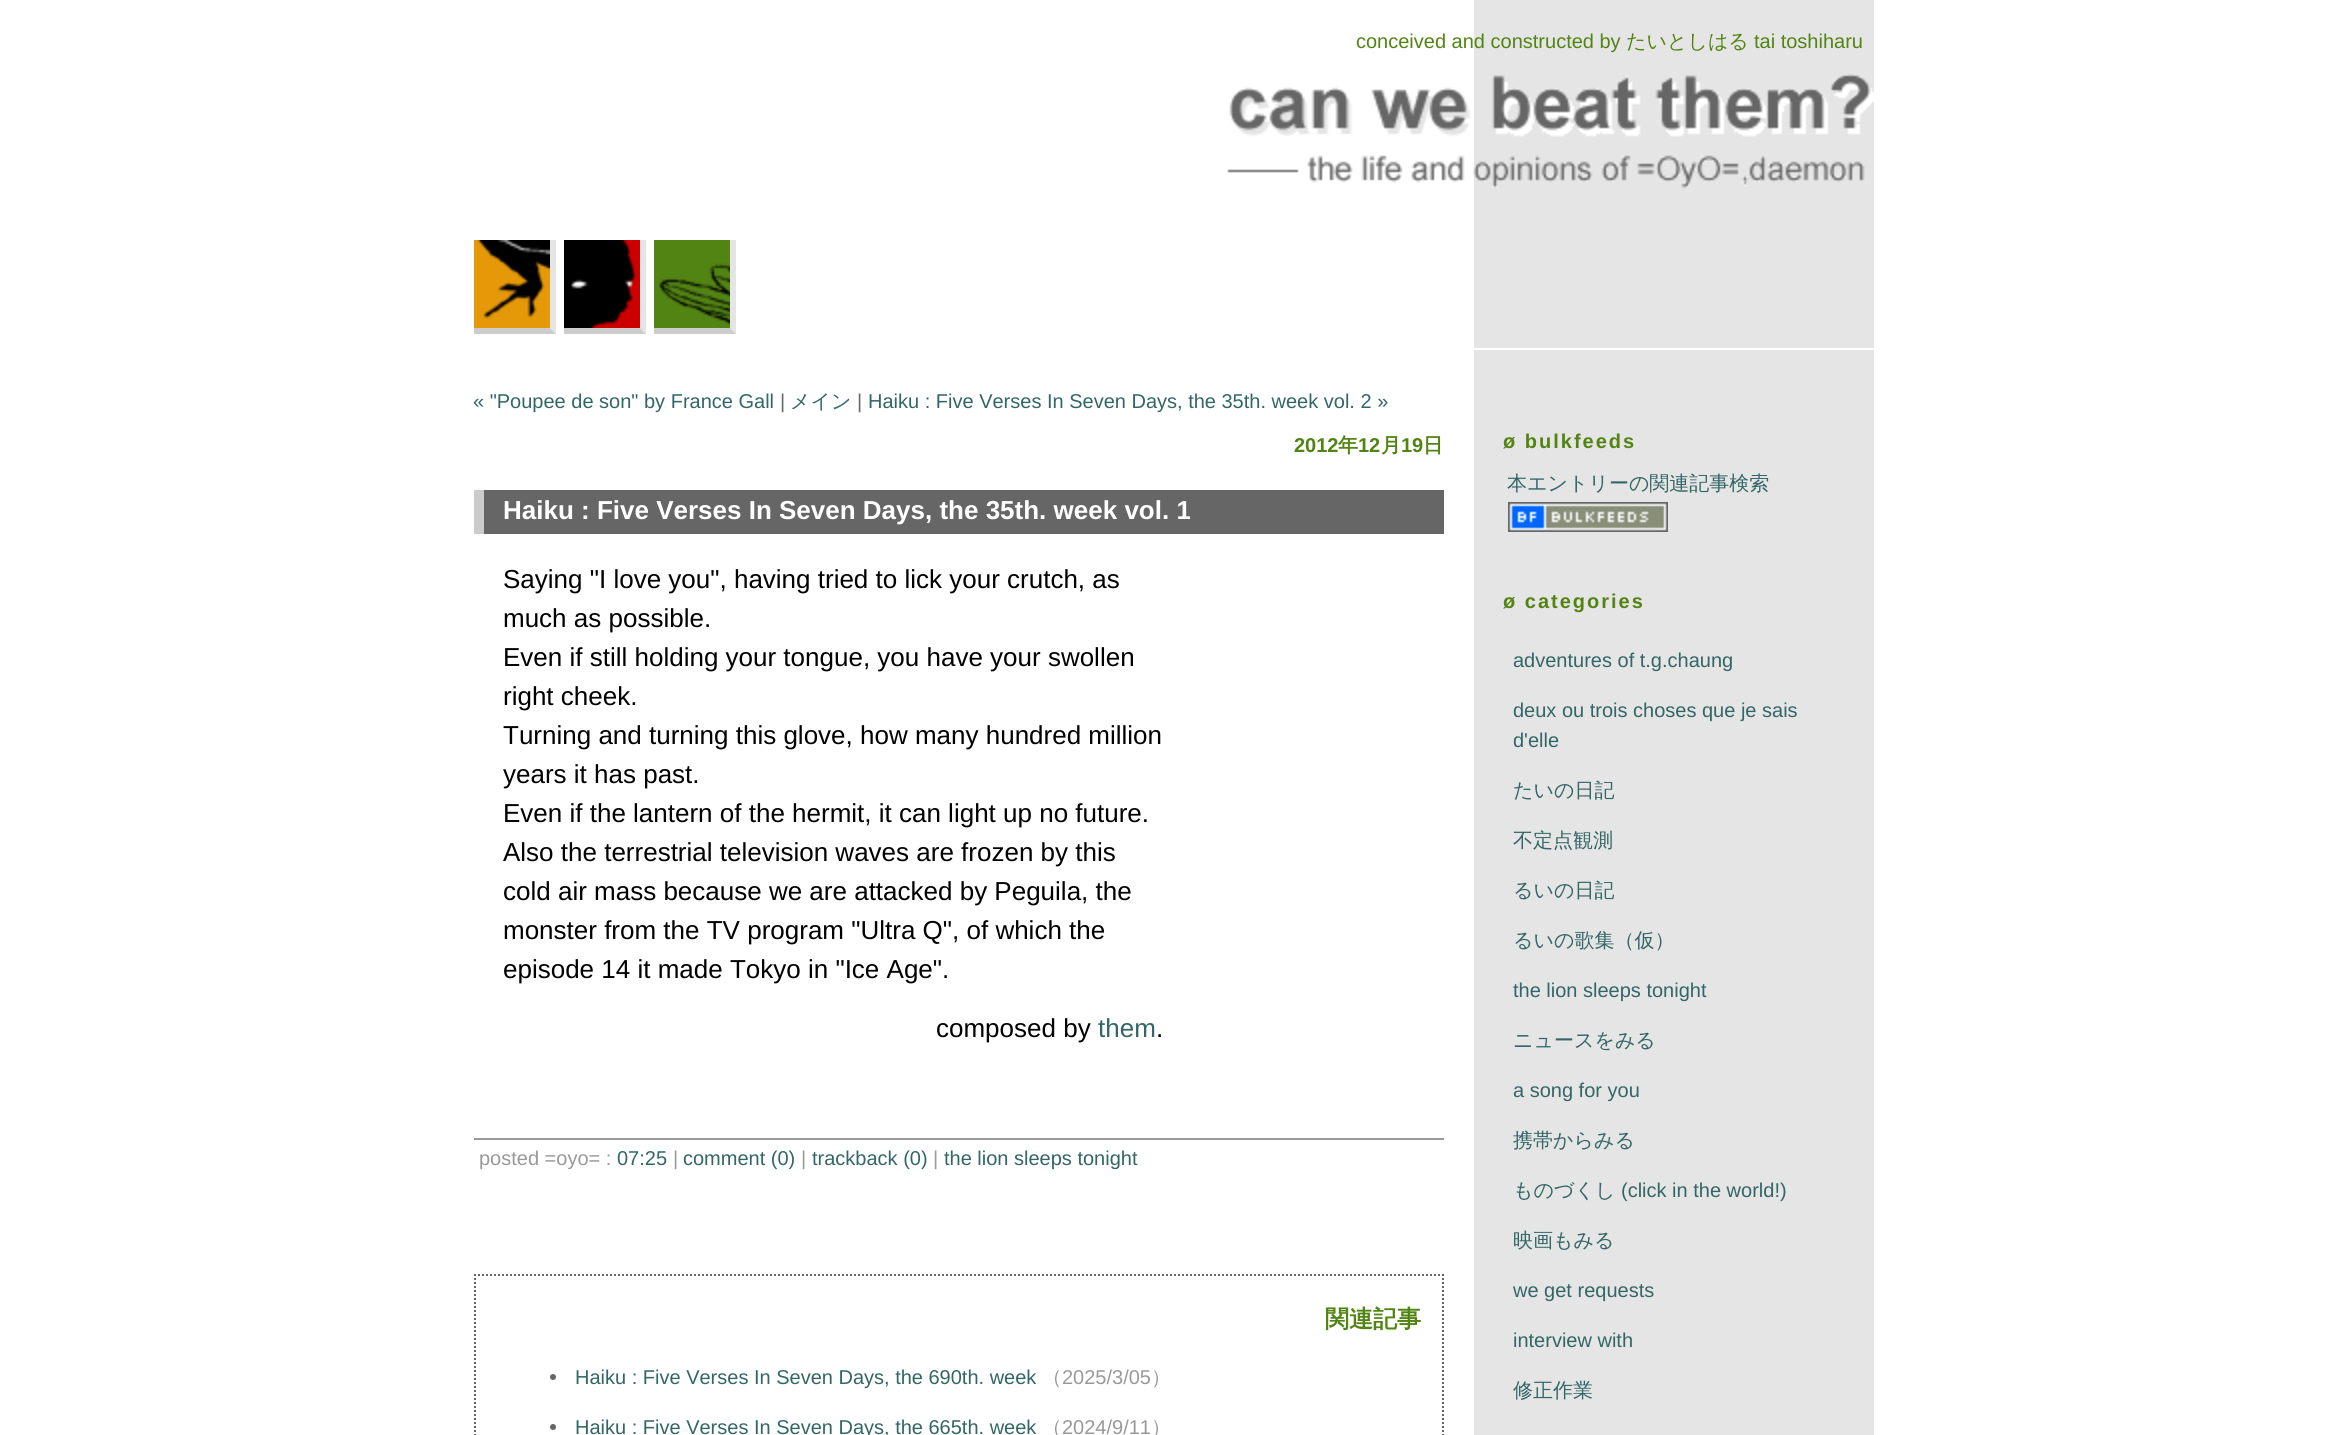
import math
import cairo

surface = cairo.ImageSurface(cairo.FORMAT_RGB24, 2345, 1435)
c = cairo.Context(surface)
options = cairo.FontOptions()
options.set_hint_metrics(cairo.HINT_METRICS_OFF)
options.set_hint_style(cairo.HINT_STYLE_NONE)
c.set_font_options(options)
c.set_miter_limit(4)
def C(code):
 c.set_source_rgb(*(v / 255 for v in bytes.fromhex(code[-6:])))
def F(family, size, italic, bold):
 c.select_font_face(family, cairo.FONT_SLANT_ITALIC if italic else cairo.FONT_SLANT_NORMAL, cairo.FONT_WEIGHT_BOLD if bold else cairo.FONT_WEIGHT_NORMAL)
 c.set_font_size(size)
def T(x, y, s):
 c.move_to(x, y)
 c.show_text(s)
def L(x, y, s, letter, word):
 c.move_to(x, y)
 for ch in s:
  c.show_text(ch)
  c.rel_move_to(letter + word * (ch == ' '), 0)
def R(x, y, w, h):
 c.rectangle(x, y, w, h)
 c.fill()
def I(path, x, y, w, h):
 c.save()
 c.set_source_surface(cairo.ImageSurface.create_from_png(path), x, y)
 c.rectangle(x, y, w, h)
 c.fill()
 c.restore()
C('ffffff')
c.paint()
C('e5e5e5')
R(1474,0,400,1435)
F('Liberation Sans',20,0,0)
C('528413')
T(1356,48,'conceived and constructed by')
F('WenQuanYi Zen Hei Medium',20,0,0)
T(1626,48,'たいとしはる')
F('Liberation Sans',20,0,0)
T(1754,48,'tai toshiharu')
C('ffffff')
R(1474,348,400,2)
I('1.png',1227,74,647,115)
I('2.png',474,240,76,88)
C('e5e5e5')
c.new_path()
c.move_to(556,240)
c.line_to(556,334)
c.line_to(550,328)
c.line_to(550,240)
c.close_path()
c.fill()
I('3.png',564,240,76,88)
c.new_path()
c.move_to(646,240)
c.line_to(646,334)
c.line_to(640,328)
c.line_to(640,240)
c.close_path()
c.fill()
I('4.png',654,240,76,88)
c.new_path()
c.move_to(736,240)
c.line_to(736,334)
c.line_to(730,328)
c.line_to(730,240)
c.close_path()
c.fill()
C('cccccc')
c.new_path()
c.move_to(556,334)
c.line_to(474,334)
c.line_to(474,328)
c.line_to(550,328)
c.close_path()
c.fill()
c.new_path()
c.move_to(646,334)
c.line_to(564,334)
c.line_to(564,328)
c.line_to(640,328)
c.close_path()
c.fill()
c.new_path()
c.move_to(736,334)
c.line_to(654,334)
c.line_to(654,328)
c.line_to(730,328)
c.close_path()
c.fill()
C('336666')
T(473,408,'« "Poupee de son" by France Gall')
C('666666')
T(780,408,'|')
F('WenQuanYi Zen Hei Medium',20,0,0)
C('336666')
T(790,408,'メイン')
F('Liberation Sans',20,0,0)
C('666666')
T(857,408,'|')
C('336666')
T(868,408,'Haiku : Five Verses In Seven Days, the 35th. week vol. 2 »')
F('Liberation Sans',20,0,1)
C('528413')
T(1294,452,'2012')
F('WenQuanYi Zen Hei',20,0,1)
T(1338,452,'年')
F('Liberation Sans',20,0,1)
T(1358,452,'12')
F('WenQuanYi Zen Hei',20,0,1)
T(1381,452,'月')
F('Liberation Sans',20,0,1)
T(1401,452,'19')
F('WenQuanYi Zen Hei',20,0,1)
T(1423,452,'日')
C('666666')
R(484,490,960,44)
C('cccccc')
R(474,490,10,44)
F('Liberation Sans',26,0,1)
C('ffffff')
T(503,519,'Haiku : Five Verses In Seven Days, the 35th. week vol. 1')
F('Liberation Sans',26,0,0)
C('000000')
T(503,588,'Saying "I love you", having tried to lick your crutch, as')
T(503,627,'much as possible.')
T(503,666,'Even if still holding your tongue, you have your swollen')
T(503,705,'right cheek.')
T(503,744,'Turning and turning this glove, how many hundred million')
T(503,783,'years it has past.')
T(503,822,'Even if the lantern of the hermit, it can light up no future.')
T(503,861,'Also the terrestrial television waves are frozen by this')
T(503,900,'cold air mass because we are attacked by Peguila, the')
T(503,939,'monster from the TV program "Ultra Q", of which the')
T(503,978,'episode 14 it made Tokyo in "Ice Age".')
T(936,1037,'composed by')
C('336666')
T(1098,1037,'them')
C('000000')
T(1156,1037,'.')
C('999999')
R(474,1138,970,2)
F('Liberation Sans',20,0,0)
T(479,1165,'posted =oyo= :')
C('336666')
T(617,1165,'07:25')
C('999999')
T(673,1165,'|')
C('336666')
T(683,1165,'comment (0)')
C('999999')
T(801,1165,'|')
C('336666')
T(812,1165,'trackback (0)')
C('999999')
T(933,1165,'|')
C('336666')
T(944,1165,'the lion sleeps tonight')
c.new_path()
c.move_to(474,1275)
c.line_to(1444,1275)
C('666666')
c.set_dash([2,2])
c.stroke()
c.new_path()
c.move_to(1443,1274)
c.line_to(1443,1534)
c.stroke()
c.new_path()
c.move_to(475,1274)
c.line_to(475,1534)
c.stroke()
F('WenQuanYi Zen Hei',24,0,1)
C('528413')
T(1325,1327,'関連記事')
C('666666')
c.new_path()
c.arc(553,1377,3,0,2 * math.pi)
c.fill()
F('Liberation Sans',20,0,0)
C('336666')
T(575,1384,'Haiku : Five Verses In Seven Days, the 690th. week')
F('WenQuanYi Zen Hei Medium',20,0,0)
C('999999')
T(1042,1384,'（')
F('Liberation Sans',20,0,0)
T(1062,1384,'2025/3/05')
F('WenQuanYi Zen Hei Medium',20,0,0)
T(1151,1384,'）')
C('666666')
c.new_path()
c.arc(553,1427,3,0,2 * math.pi)
c.fill()
F('Liberation Sans',20,0,0)
C('336666')
T(575,1434,'Haiku : Five Verses In Seven Days, the 665th. week')
F('WenQuanYi Zen Hei Medium',20,0,0)
C('999999')
T(1042,1434,'（')
F('Liberation Sans',20,0,0)
T(1062,1434,'2024/9/11')
F('WenQuanYi Zen Hei Medium',20,0,0)
T(1151,1434,'）')
F('Liberation Sans',20,0,1)
C('528413')
L(1503,448,'ø bulkfeeds',2,0)
F('WenQuanYi Zen Hei Medium',20,0,0)
C('336666')
T(1507,490,'本エントリーの関連記事検索')
I('5.png',1508,502,160,30)
F('Liberation Sans',20,0,1)
C('528413')
L(1503,608,'ø categories',2,0)
F('Liberation Sans',20,0,0)
C('336666')
T(1513,667,'adventures of t.g.chaung')
T(1513,717,'deux ou trois choses que je sais')
T(1513,747,'d\'elle')
F('WenQuanYi Zen Hei Medium',20,0,0)
T(1513,797,'たいの日記')
T(1513,847,'不定点観測')
T(1513,897,'るいの日記')
T(1513,947,'るいの歌集（仮）')
F('Liberation Sans',20,0,0)
T(1513,997,'the lion sleeps tonight')
F('WenQuanYi Zen Hei Medium',20,0,0)
T(1513,1047,'ニュースをみる')
F('Liberation Sans',20,0,0)
T(1513,1097,'a song for you')
F('WenQuanYi Zen Hei Medium',20,0,0)
T(1513,1147,'携帯からみる')
T(1513,1197,'ものづくし')
F('Liberation Sans',20,0,0)
T(1621,1197,'(click in the world!)')
F('WenQuanYi Zen Hei Medium',20,0,0)
T(1513,1247,'映画もみる')
F('Liberation Sans',20,0,0)
T(1513,1297,'we get requests')
T(1513,1347,'interview with')
F('WenQuanYi Zen Hei Medium',20,0,0)
T(1513,1397,'修正作業')
surface.write_to_png('o.png')
